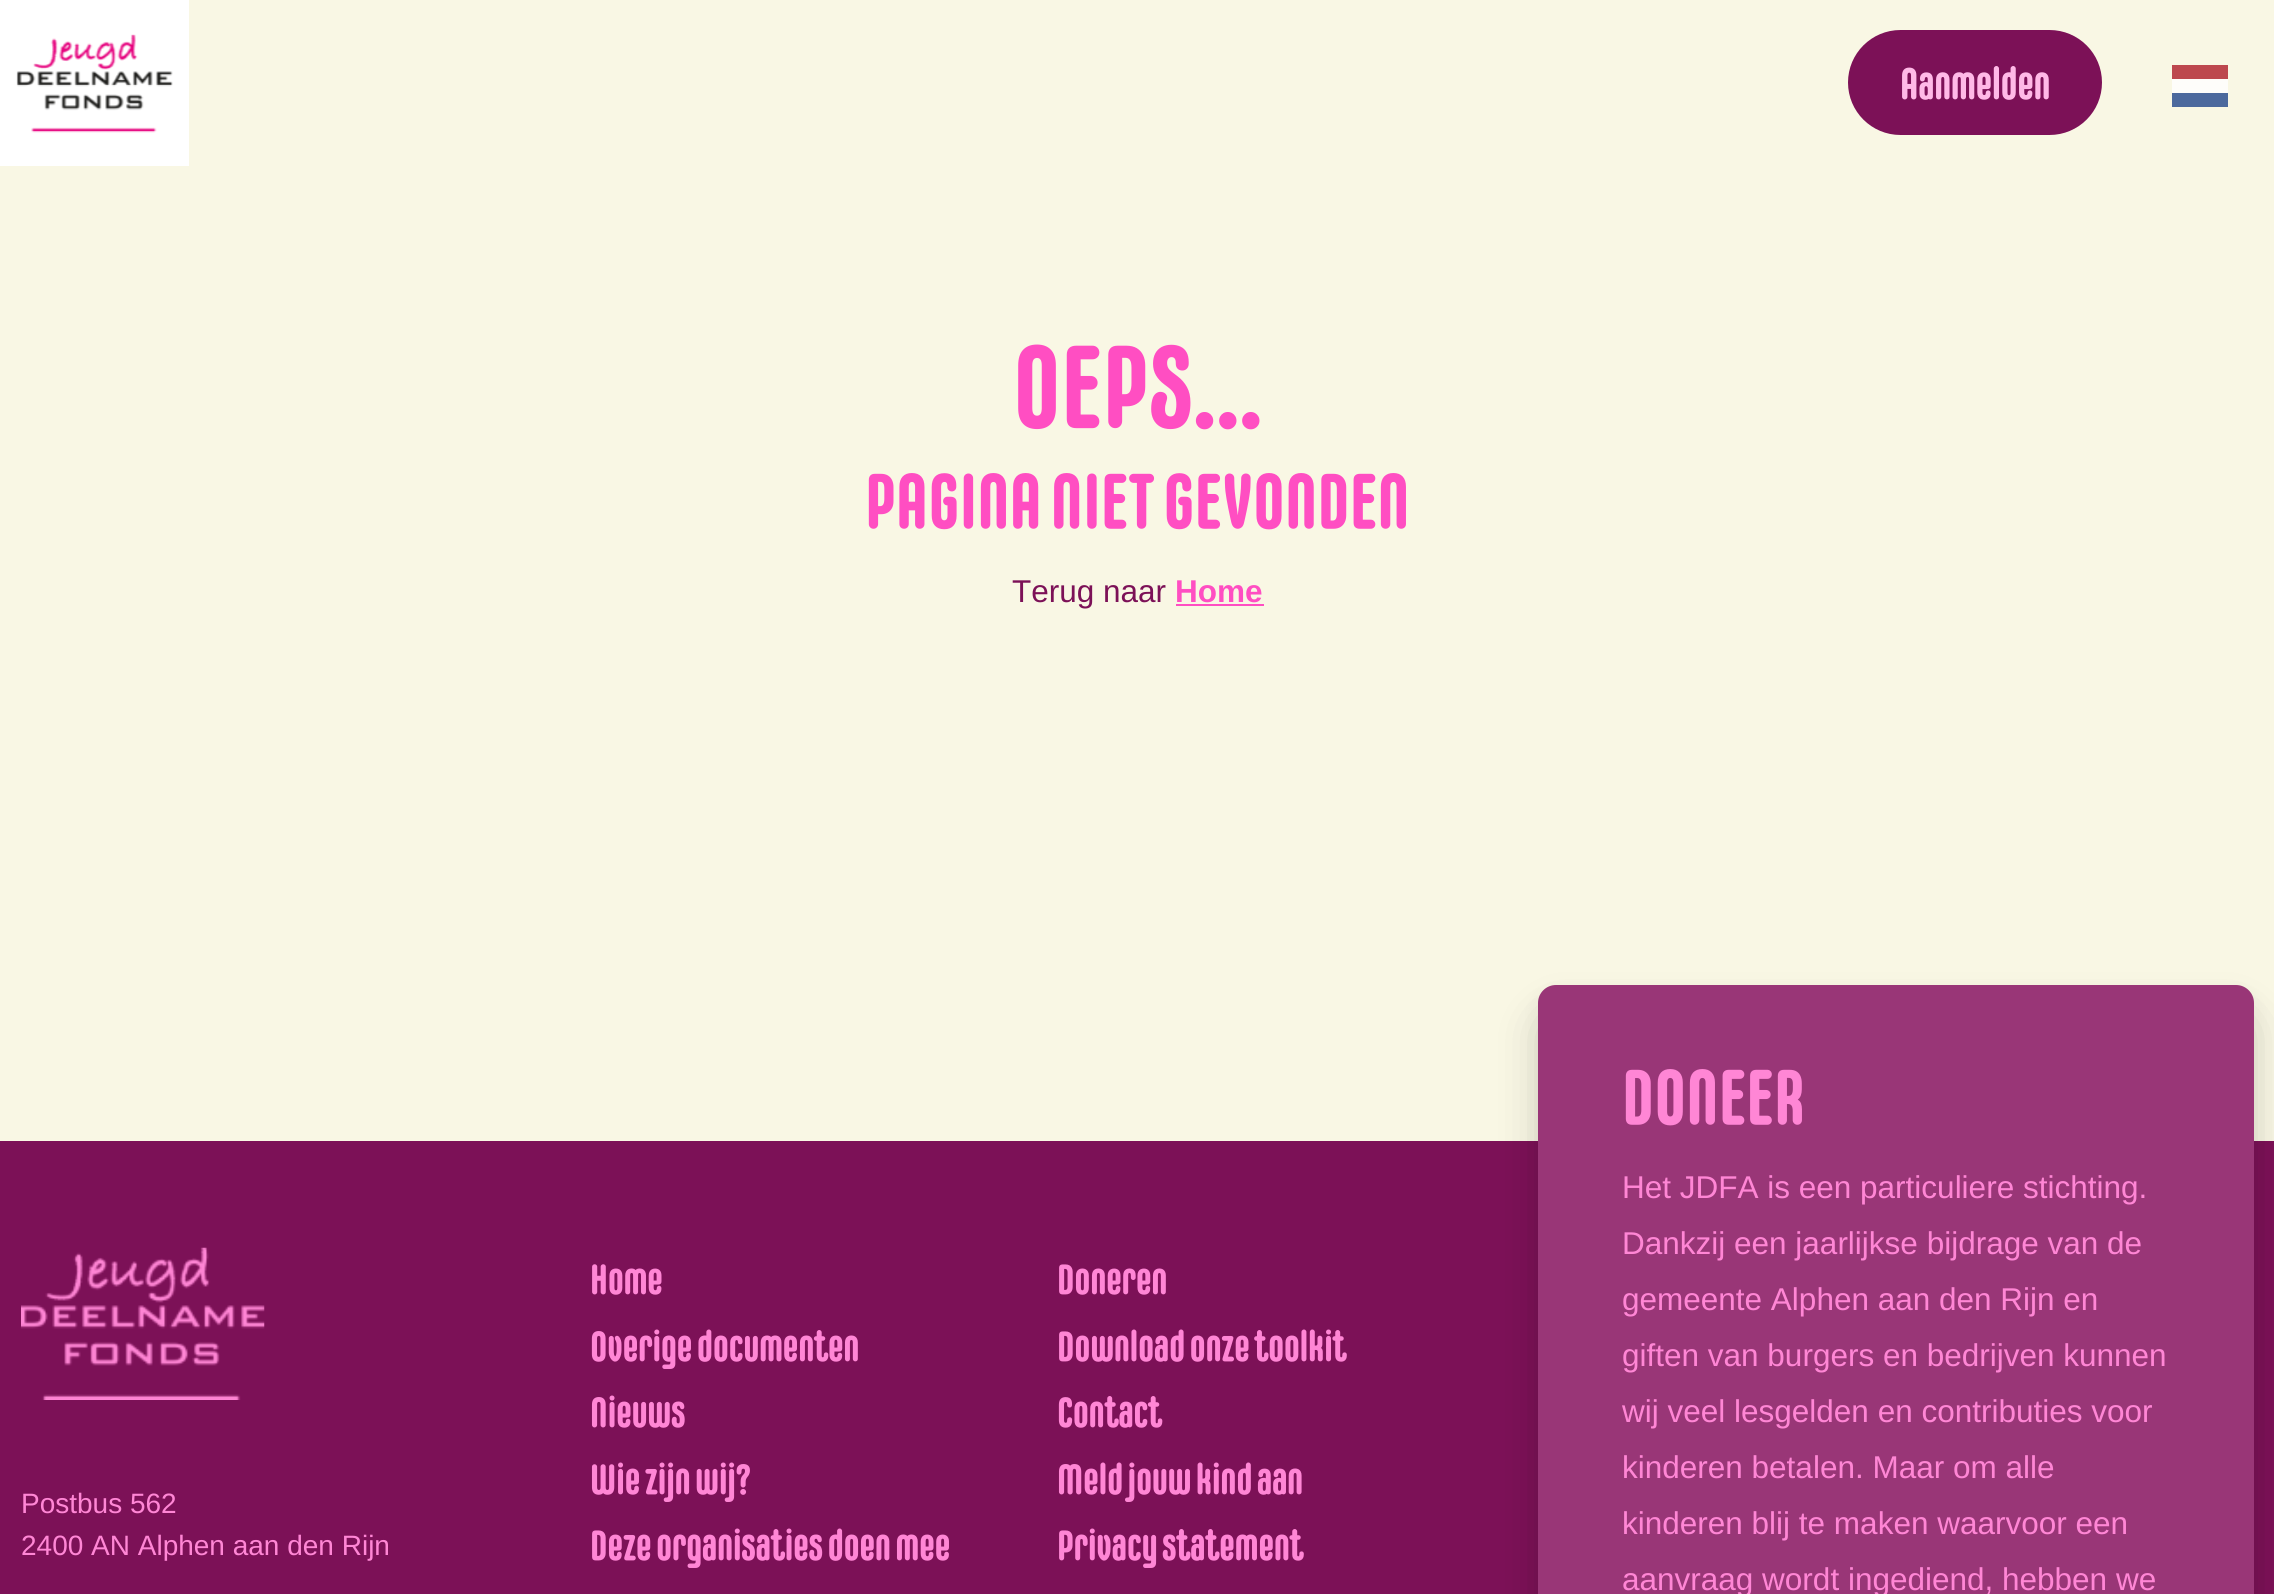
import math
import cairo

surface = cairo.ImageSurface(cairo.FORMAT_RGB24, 2274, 1594)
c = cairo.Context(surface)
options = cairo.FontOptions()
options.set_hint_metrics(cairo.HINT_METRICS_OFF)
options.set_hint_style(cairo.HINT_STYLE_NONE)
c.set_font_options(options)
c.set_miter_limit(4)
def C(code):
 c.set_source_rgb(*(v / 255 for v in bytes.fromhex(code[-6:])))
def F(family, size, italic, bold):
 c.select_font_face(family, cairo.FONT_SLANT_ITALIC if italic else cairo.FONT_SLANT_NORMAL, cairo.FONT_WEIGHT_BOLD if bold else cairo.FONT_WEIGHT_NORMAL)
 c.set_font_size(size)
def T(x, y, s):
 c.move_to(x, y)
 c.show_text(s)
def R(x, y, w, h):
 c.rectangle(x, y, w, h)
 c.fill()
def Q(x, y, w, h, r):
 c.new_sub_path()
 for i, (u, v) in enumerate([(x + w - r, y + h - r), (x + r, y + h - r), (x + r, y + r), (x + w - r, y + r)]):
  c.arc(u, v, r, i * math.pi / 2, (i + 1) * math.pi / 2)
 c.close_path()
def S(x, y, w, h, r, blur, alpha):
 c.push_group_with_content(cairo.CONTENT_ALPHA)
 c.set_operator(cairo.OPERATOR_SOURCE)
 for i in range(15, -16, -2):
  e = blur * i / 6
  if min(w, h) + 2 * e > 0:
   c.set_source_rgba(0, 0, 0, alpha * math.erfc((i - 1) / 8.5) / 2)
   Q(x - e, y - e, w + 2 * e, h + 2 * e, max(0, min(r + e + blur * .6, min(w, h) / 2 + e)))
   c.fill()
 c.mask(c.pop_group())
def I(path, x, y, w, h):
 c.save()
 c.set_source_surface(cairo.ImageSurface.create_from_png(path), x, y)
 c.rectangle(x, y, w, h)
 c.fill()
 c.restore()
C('f9f7e4')
c.paint()
C('ffffff')
R(0,0,189,166)
I('1.png',16,34,157,99)
C('7c1157')
Q(1848,30,254,105,52.5)
c.fill()
F('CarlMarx',44,0,1)
C('ffb9e7')
T(1900,99,'Aanmelden')
C('bd484e')
R(2172,65,56,14)
C('fefdfa')
R(2172,79,56,14)
C('4c699d')
R(2172,93,56,14)
F('CarlMarx',115.5,0,1)
C('ff4ec2')
T(1013,427,'OEPS...')
F('CarlMarx',77,0,1)
T(865,528,'PAGINA NIET GEVONDEN')
F('Liberation Sans',31.5,0,0)
C('7c1157')
T(1012,602,'Terug naar')
F('Liberation Sans',31.5,0,1)
C('ff4ec2')
T(1175,602,'Home')
R(1176,604,88,2)
C('7c1157')
R(0,1141,2274,453)
I('2.png',21,1247,244,153)
F('Liberation Sans',28,0,0)
C('ff86d5')
T(21,1513,'Postbus 562')
T(21,1555,'2400 AN Alphen aan den Rijn')
F('CarlMarx',42,0,1)
T(590,1294,'Home')
T(1057,1294,'Doneren')
T(590,1361,'Overige documenten')
T(1057,1361,'Download onze toolkit')
T(590,1427,'Nieuws')
T(1057,1427,'Contact')
T(590,1494,'Wie zijn wij?')
T(1057,1494,'Meld jouw kind aan')
T(590,1560,'Deze organisaties doen mee')
T(1057,1560,'Privacy statement')
C('000000')
S(1538,994,716,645,18,9,.05)
S(1538,1012,716,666,18,22,.15)
C('993677')
Q(1538,985,716,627,18)
c.fill()
F('CarlMarx',77,0,1)
C('ff86d5')
T(1622,1124,'DONEER')
F('Liberation Sans',31.5,0,0)
T(1622,1198,'Het JDFA is een particuliere stichting.')
T(1622,1254,'Dankzij een jaarlijkse bijdrage van de')
T(1622,1310,'gemeente Alphen aan den Rijn en')
T(1622,1366,'giften van burgers en bedrijven kunnen')
T(1622,1422,'wij veel lesgelden en contributies voor')
T(1622,1478,'kinderen betalen. Maar om alle')
T(1622,1534,'kinderen blij te maken waarvoor een')
T(1622,1590,'aanvraag wordt ingediend, hebben we')
surface.write_to_png('o.png')
